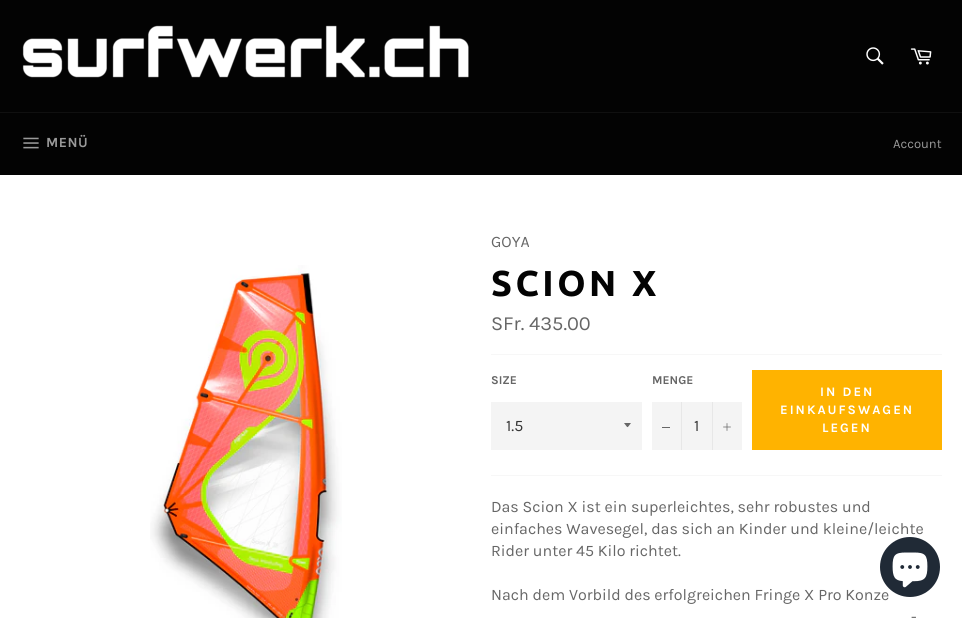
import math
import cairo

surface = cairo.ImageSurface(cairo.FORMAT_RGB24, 962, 618)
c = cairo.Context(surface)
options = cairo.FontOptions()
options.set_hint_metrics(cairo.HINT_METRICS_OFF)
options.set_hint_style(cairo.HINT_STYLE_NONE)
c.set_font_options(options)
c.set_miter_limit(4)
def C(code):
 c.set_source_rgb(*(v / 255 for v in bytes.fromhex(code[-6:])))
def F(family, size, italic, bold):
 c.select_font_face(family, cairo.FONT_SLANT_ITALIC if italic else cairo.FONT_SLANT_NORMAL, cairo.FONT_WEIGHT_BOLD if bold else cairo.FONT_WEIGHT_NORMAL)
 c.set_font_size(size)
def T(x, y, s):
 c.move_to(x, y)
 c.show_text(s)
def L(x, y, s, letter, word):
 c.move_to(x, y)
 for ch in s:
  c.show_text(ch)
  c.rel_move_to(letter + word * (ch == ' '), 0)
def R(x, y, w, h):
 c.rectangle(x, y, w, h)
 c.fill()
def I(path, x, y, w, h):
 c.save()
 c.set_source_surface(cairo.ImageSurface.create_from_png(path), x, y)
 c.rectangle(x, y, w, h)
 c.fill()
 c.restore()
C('ffffff')
c.paint()
C('030303')
R(0,0,962,112)
I('1.png',22,25,447,53)
I('2.png',866,47,18,18)
I('3.png',910,48,22,17)
R(0,113,962,62)
C('101010')
R(0,112,962,1)
I('4.png',23,137,16,12)
F('Karla',14,0,1)
C('9a9a9a')
L(46,147,'MENÜ',.5,0)
F('Karla',13,0,0)
T(893,148,'Account')
I('5.png',150,265,192,353)
F('Karla',16,0,0)
C('666666')
T(491,247,'GOYA')
F('Ubuntu',36,0,1)
C('030303')
L(491,296,'SCION X',3.5,0)
F('Karla',20,0,0)
C('666666')
T(491,330,'SFr. 435.00')
C('f7f7f7')
R(491,354,451,1)
F('Karla',12,0,1)
C('666666')
T(491,384,'SIZE')
C('f4f4f4')
R(491,402,151,48)
C('666666')
c.new_path()
c.move_to(624,423)
c.curve_to(628.5,428.5,626.5,428.5,631,423)
c.close_path()
c.fill()
F('Karla',16,0,0)
C('333333')
T(506,431,'1.5')
F('Karla',12,0,1)
C('666666')
T(652,384,'MENGE')
C('f4f4f4')
R(652,402,90,48)
C('e7e7e7')
R(681,402,1,48)
C('666666')
R(662,427,8,1)
F('Karla',16,0,0)
C('333333')
T(694,431,'1')
C('e7e7e7')
R(712,402,1,48)
I('6.png',723,423,8,8)
C('ffb300')
R(752,370,190,80)
F('Karla',13,0,1)
C('ffffff')
L(820,396,'IN DEN',2,0)
L(780,414,'EINKAUFSWAGEN',2,0)
L(822,432,'LEGEN',2,0)
C('f7f7f7')
R(491,475,451,1)
F('Karla',16,0,0)
C('666666')
T(491,512,'Das Scion X ist ein superleichtes, sehr robustes und')
T(491,534,'einfaches Wavesegel, das sich an Kinder und kleine/leichte')
T(491,556,'Rider unter 45 Kilo richtet.')
T(491,600,'Nach dem Vorbild des erfolgreichen Fringe X Pro Konze')
T(911,622,'-')
C('202a36')
c.new_path()
c.arc(910,567,30,0,2 * math.pi)
c.fill()
I('7.png',892,552,36,36)
surface.write_to_png('o.png')
